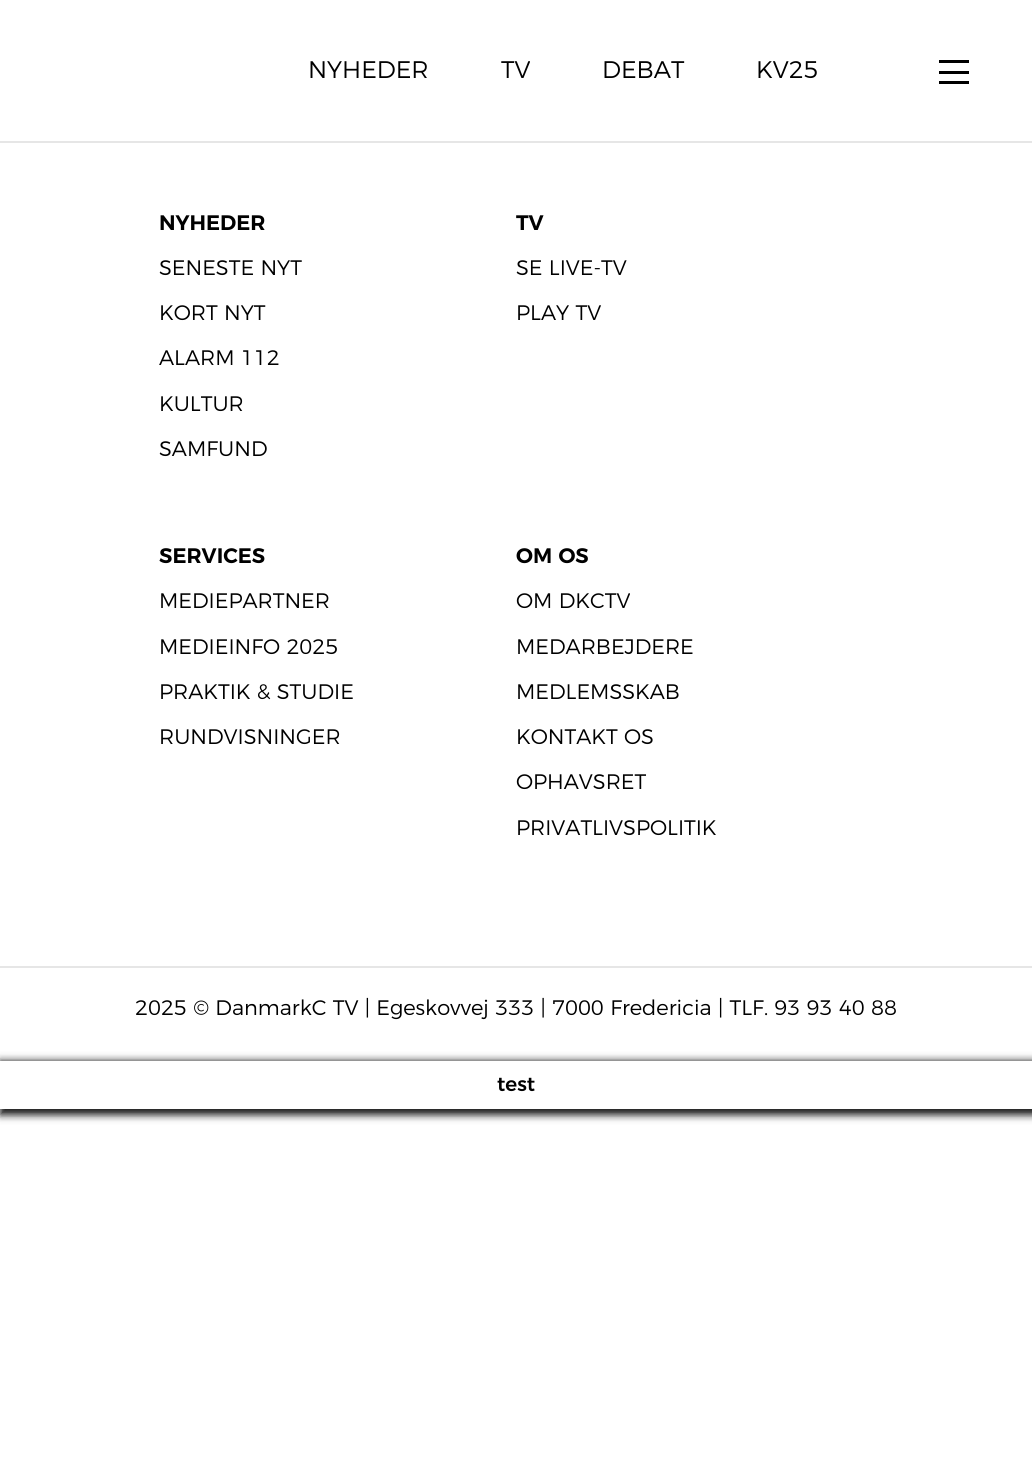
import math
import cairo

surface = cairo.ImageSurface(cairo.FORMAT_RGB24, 1032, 1464)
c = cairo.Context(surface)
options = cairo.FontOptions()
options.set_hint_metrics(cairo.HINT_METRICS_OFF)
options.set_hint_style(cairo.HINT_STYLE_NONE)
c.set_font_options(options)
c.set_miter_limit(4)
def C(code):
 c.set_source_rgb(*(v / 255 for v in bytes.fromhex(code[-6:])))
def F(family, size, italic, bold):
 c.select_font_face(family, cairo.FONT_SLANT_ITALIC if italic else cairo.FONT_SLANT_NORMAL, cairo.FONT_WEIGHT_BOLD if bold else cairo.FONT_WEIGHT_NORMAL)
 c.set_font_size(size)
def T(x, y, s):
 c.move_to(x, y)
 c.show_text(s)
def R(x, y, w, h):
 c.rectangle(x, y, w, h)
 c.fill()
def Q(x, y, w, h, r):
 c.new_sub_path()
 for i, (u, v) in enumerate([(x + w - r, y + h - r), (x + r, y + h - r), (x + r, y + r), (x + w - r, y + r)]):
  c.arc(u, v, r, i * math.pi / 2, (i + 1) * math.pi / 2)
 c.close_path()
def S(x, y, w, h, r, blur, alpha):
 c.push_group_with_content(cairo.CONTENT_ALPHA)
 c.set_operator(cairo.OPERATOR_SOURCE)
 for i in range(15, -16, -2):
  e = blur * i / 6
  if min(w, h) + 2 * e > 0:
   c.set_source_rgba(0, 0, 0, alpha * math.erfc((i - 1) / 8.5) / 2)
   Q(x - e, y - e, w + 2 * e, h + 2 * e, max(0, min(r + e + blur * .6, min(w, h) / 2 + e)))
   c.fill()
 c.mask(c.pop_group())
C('ffffff')
c.paint()
C('e6e6e6')
R(0,141,1032,2)
F('Montserrat Light',24,0,0)
C('000000')
T(308,78,'NYHEDER')
T(501,78,'TV')
T(602,78,'DEBAT')
T(756,78,'KV25')
R(939,60,30,3)
R(939,71,30,3)
R(939,81,30,3)
F('Montserrat SemiBold',21,0,0)
T(159,230,'NYHEDER')
F('Montserrat Light',21,0,0)
T(159,275,'SENESTE NYT')
T(159,320,'KORT NYT')
T(159,365,'ALARM 112')
T(159,411,'KULTUR')
T(159,456,'SAMFUND')
F('Montserrat SemiBold',21,0,0)
T(516,230,'TV')
F('Montserrat Light',21,0,0)
T(516,275,'SE LIVE-TV')
T(516,320,'PLAY TV')
F('Montserrat SemiBold',21,0,0)
T(159,563,'SERVICES')
F('Montserrat Light',21,0,0)
T(159,608,'MEDIEPARTNER')
T(159,654,'MEDIEINFO 2025')
T(159,699,'PRAKTIK & STUDIE')
T(159,744,'RUNDVISNINGER')
F('Montserrat SemiBold',21,0,0)
T(516,563,'OM OS')
F('Montserrat Light',21,0,0)
T(516,608,'OM DKCTV')
T(516,654,'MEDARBEJDERE')
T(516,699,'MEDLEMSSKAB')
T(516,744,'KONTAKT OS')
T(516,789,'OPHAVSRET')
T(516,835,'PRIVATLIVSPOLITIK')
C('e6e6e6')
R(0,966,1032,2)
C('000000')
T(135,1015,'2025 © DanmarkC TV | Egeskovvej 333 | 7000 Fredericia | TLF. 93 93 40 88')
c.save()
c.set_fill_rule(cairo.FILL_RULE_EVEN_ODD)
c.new_path()
c.move_to(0,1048)
c.line_to(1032,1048)
c.line_to(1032,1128)
c.line_to(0,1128)
c.close_path()
c.move_to(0,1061)
c.line_to(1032,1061)
c.line_to(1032,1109)
c.line_to(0,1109)
c.close_path()
c.clip()
C('161616')
S(0,1061,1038,54,0,4,1)
c.restore()
F('Montserrat Medium',20,0,0)
T(497,1091,'test')
surface.write_to_png('o.png')
